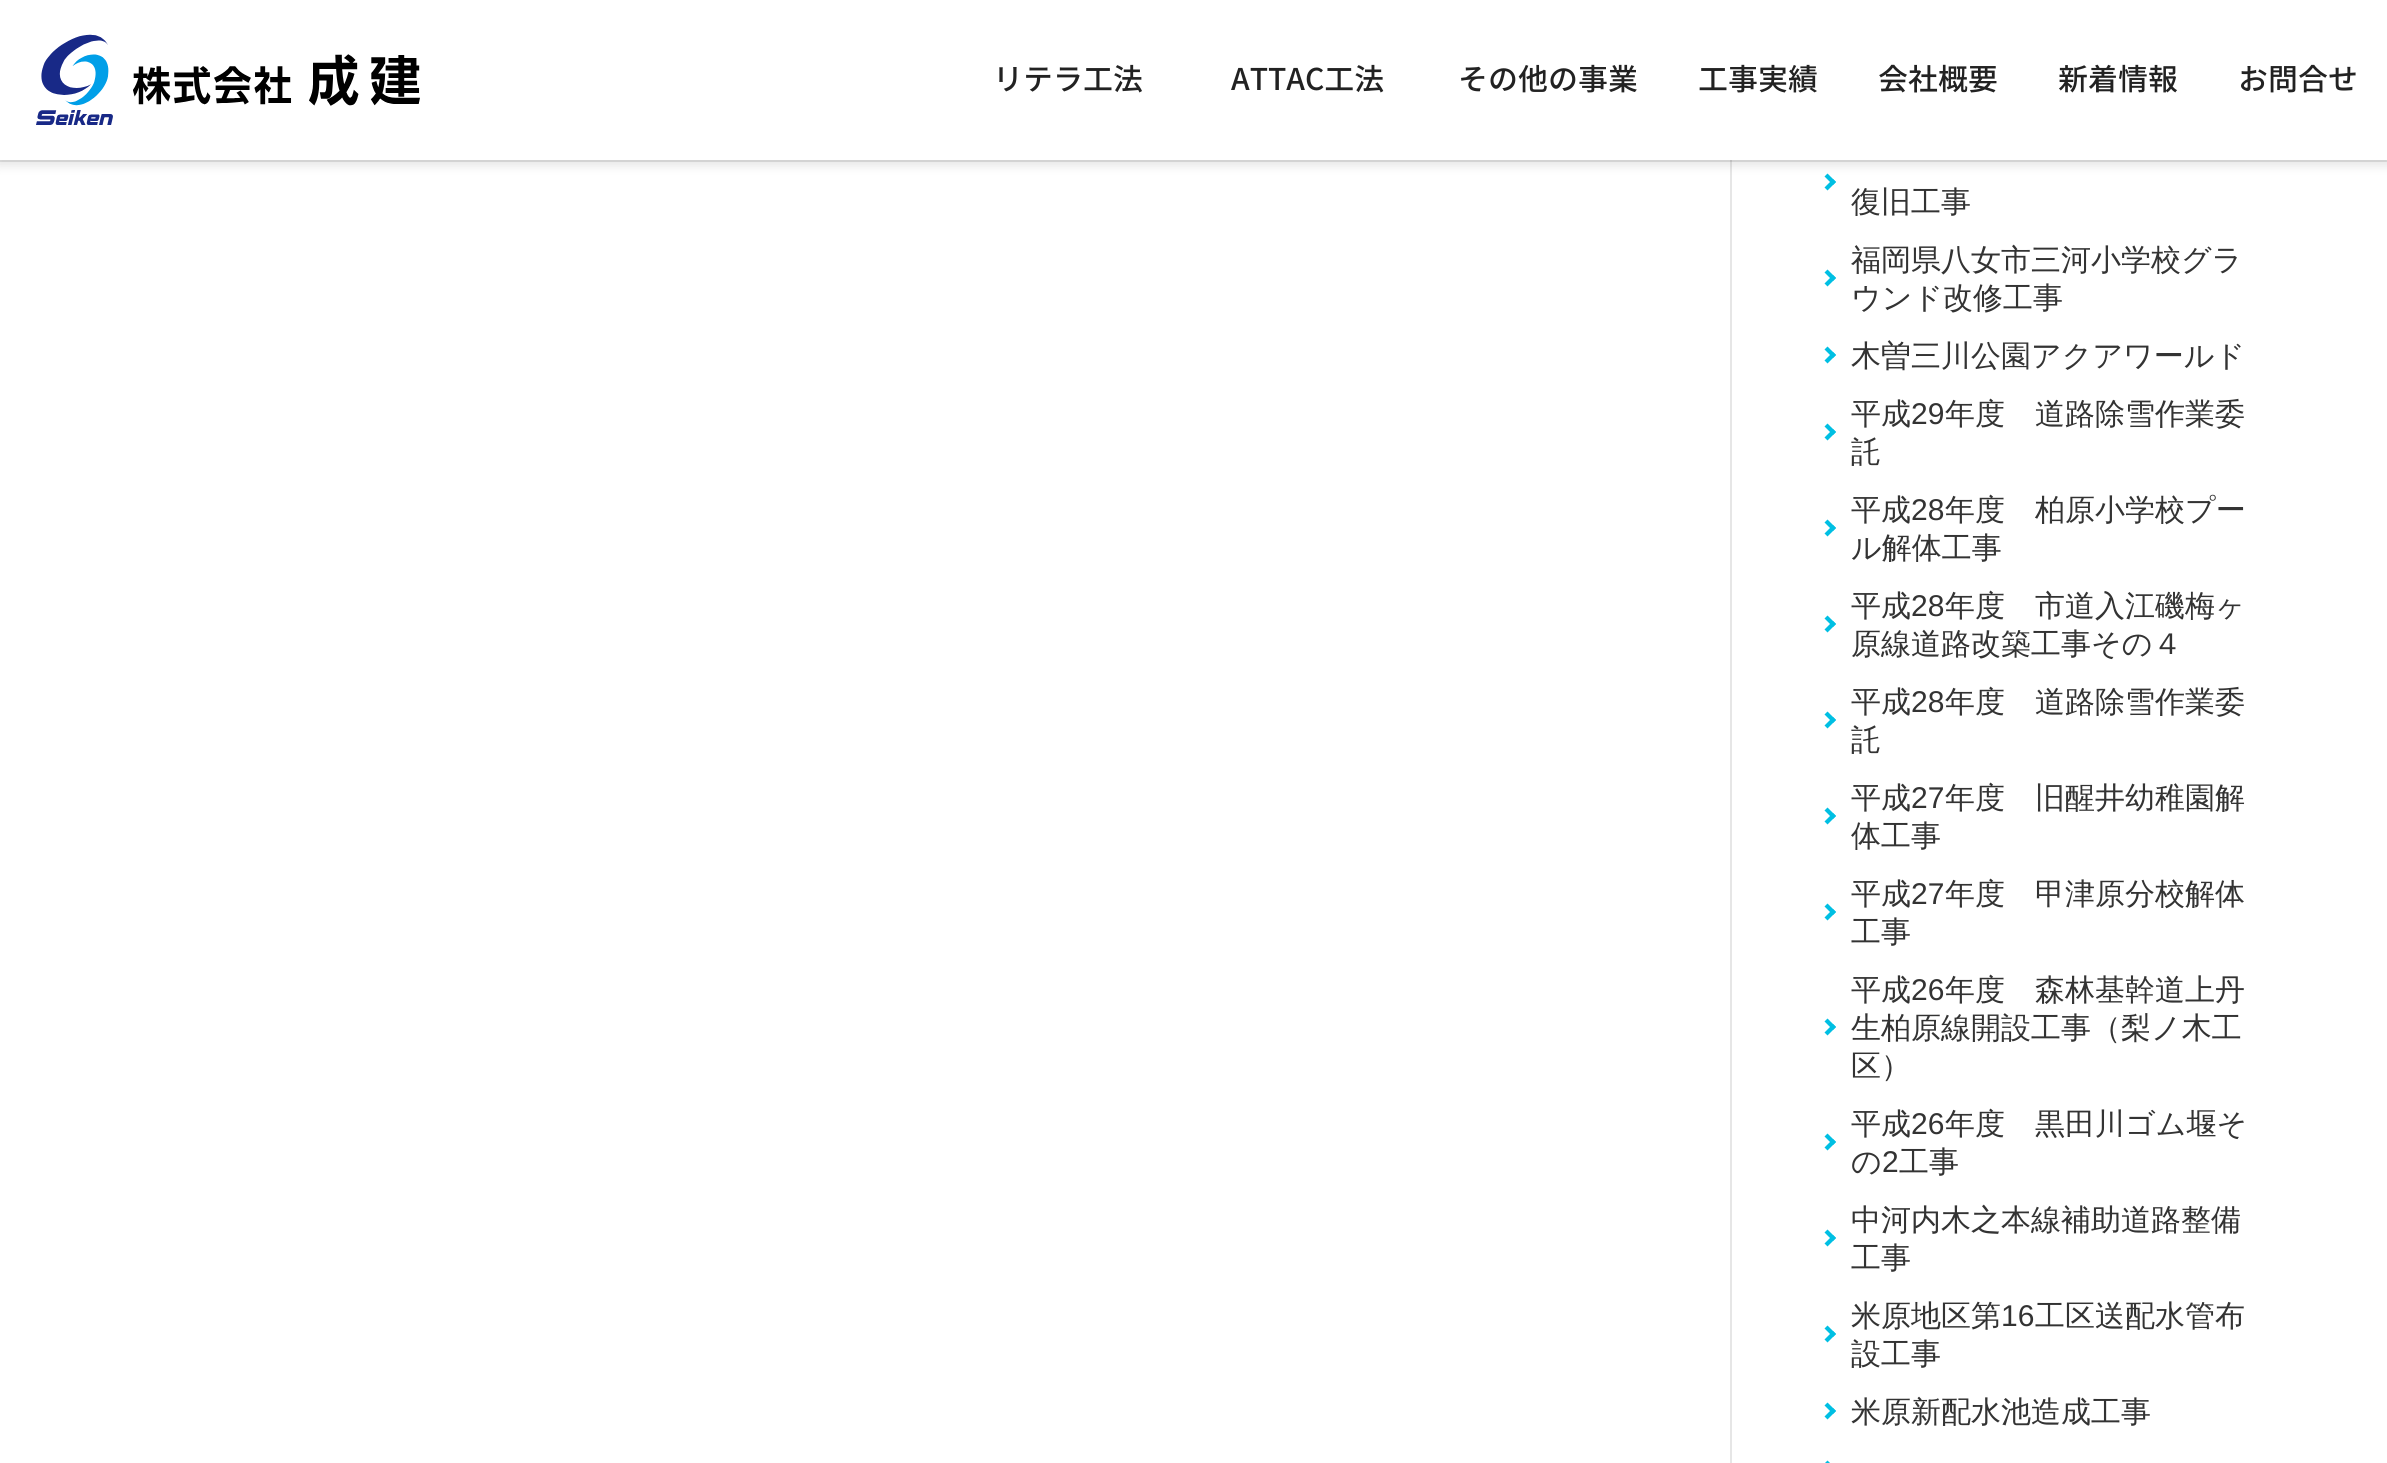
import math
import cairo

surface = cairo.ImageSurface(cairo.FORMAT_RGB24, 2387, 1463)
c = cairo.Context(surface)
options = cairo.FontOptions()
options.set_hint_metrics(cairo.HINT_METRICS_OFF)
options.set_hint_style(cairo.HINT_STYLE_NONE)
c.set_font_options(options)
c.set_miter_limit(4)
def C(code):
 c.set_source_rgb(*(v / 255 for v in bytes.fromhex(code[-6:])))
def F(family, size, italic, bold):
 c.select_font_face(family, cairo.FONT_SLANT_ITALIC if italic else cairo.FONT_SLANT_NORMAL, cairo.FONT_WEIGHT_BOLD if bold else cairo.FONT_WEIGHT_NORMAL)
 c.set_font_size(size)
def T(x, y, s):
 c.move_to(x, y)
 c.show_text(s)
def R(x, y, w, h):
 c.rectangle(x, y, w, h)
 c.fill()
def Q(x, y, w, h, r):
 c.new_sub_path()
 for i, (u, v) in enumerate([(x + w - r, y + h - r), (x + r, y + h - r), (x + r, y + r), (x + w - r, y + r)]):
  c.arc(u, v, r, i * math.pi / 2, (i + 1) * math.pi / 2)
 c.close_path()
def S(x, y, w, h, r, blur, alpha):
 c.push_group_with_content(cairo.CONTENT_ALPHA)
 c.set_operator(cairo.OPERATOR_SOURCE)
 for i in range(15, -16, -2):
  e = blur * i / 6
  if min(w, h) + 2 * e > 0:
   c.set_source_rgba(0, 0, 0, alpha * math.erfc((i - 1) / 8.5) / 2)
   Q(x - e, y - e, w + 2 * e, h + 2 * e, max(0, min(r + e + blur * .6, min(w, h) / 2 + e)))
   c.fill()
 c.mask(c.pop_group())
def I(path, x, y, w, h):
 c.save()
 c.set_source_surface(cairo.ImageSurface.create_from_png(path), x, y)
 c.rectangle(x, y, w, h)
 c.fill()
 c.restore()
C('ffffff')
c.paint()
C('e6e6e6')
R(1730,160,2,1303)
C('00bfe3')
c.new_path()
c.move_to(1827.5,173.5)
c.line_to(1836,182)
c.line_to(1833,185)
c.line_to(1824.5,176.5)
c.close_path()
c.fill()
c.new_path()
c.move_to(1833,179)
c.line_to(1836,182)
c.line_to(1827.5,190.5)
c.line_to(1824.5,187.5)
c.close_path()
c.fill()
C('000000')
S(-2,2,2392,164,0,5,.1)
C('ffffff')
R(0,0,2387,160)
I('1.png',36,34,384,91)
F('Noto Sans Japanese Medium',30,0,0)
C('222222')
T(993,90,'リテラ工法')
T(1231,90,'ATTAC工法')
T(1458,90,'その他の事業')
T(1698,90,'工事実績')
T(1878,90,'会社概要')
T(2058,90,'新着情報')
T(2238,90,'お問合せ')
c.set_source_rgba(0,0,0,0.1)
R(0,160,2387,2)
F('WenQuanYi Zen Hei Medium',30,0,0)
C('333333')
T(1851,212,'復旧工事')
T(1851,270,'福岡県八女市三河小学校グラ')
C('00bfe3')
c.new_path()
c.move_to(1827.5,269.5)
c.line_to(1836,278)
c.line_to(1833,281)
c.line_to(1824.5,272.5)
c.close_path()
c.fill()
c.new_path()
c.move_to(1833,275)
c.line_to(1836,278)
c.line_to(1827.5,286.5)
c.line_to(1824.5,283.5)
c.close_path()
c.fill()
C('333333')
T(1851,308,'ウンド改修工事')
C('00bfe3')
c.new_path()
c.move_to(1827.5,346.5)
c.line_to(1836,355)
c.line_to(1833,358)
c.line_to(1824.5,349.5)
c.close_path()
c.fill()
c.new_path()
c.move_to(1833,352)
c.line_to(1836,355)
c.line_to(1827.5,363.5)
c.line_to(1824.5,360.5)
c.close_path()
c.fill()
C('333333')
T(1851,366,'木曽三川公園アクアワールド')
T(1851,424,'平成')
F('Liberation Sans',30,0,0)
T(1911,424,'29')
F('WenQuanYi Zen Hei Medium',30,0,0)
T(1945,424,'年度　道路除雪作業委')
C('00bfe3')
c.new_path()
c.move_to(1827.5,423.5)
c.line_to(1836,432)
c.line_to(1833,435)
c.line_to(1824.5,426.5)
c.close_path()
c.fill()
c.new_path()
c.move_to(1833,429)
c.line_to(1836,432)
c.line_to(1827.5,440.5)
c.line_to(1824.5,437.5)
c.close_path()
c.fill()
C('333333')
T(1851,462,'託')
T(1851,520,'平成')
F('Liberation Sans',30,0,0)
T(1911,520,'28')
F('WenQuanYi Zen Hei Medium',30,0,0)
T(1945,520,'年度　柏原小学校プー')
C('00bfe3')
c.new_path()
c.move_to(1827.5,519.5)
c.line_to(1836,528)
c.line_to(1833,531)
c.line_to(1824.5,522.5)
c.close_path()
c.fill()
c.new_path()
c.move_to(1833,525)
c.line_to(1836,528)
c.line_to(1827.5,536.5)
c.line_to(1824.5,533.5)
c.close_path()
c.fill()
C('333333')
T(1851,558,'ル解体工事')
T(1851,616,'平成')
F('Liberation Sans',30,0,0)
T(1911,616,'28')
F('WenQuanYi Zen Hei Medium',30,0,0)
T(1945,616,'年度　市道入江磯梅ヶ')
C('00bfe3')
c.new_path()
c.move_to(1827.5,615.5)
c.line_to(1836,624)
c.line_to(1833,627)
c.line_to(1824.5,618.5)
c.close_path()
c.fill()
c.new_path()
c.move_to(1833,621)
c.line_to(1836,624)
c.line_to(1827.5,632.5)
c.line_to(1824.5,629.5)
c.close_path()
c.fill()
C('333333')
T(1851,654,'原線道路改築工事その４')
T(1851,712,'平成')
F('Liberation Sans',30,0,0)
T(1911,712,'28')
F('WenQuanYi Zen Hei Medium',30,0,0)
T(1945,712,'年度　道路除雪作業委')
C('00bfe3')
c.new_path()
c.move_to(1827.5,711.5)
c.line_to(1836,720)
c.line_to(1833,723)
c.line_to(1824.5,714.5)
c.close_path()
c.fill()
c.new_path()
c.move_to(1833,717)
c.line_to(1836,720)
c.line_to(1827.5,728.5)
c.line_to(1824.5,725.5)
c.close_path()
c.fill()
C('333333')
T(1851,750,'託')
T(1851,808,'平成')
F('Liberation Sans',30,0,0)
T(1911,808,'27')
F('WenQuanYi Zen Hei Medium',30,0,0)
T(1945,808,'年度　旧醒井幼稚園解')
C('00bfe3')
c.new_path()
c.move_to(1827.5,807.5)
c.line_to(1836,816)
c.line_to(1833,819)
c.line_to(1824.5,810.5)
c.close_path()
c.fill()
c.new_path()
c.move_to(1833,813)
c.line_to(1836,816)
c.line_to(1827.5,824.5)
c.line_to(1824.5,821.5)
c.close_path()
c.fill()
C('333333')
T(1851,846,'体工事')
T(1851,904,'平成')
F('Liberation Sans',30,0,0)
T(1911,904,'27')
F('WenQuanYi Zen Hei Medium',30,0,0)
T(1945,904,'年度　甲津原分校解体')
C('00bfe3')
c.new_path()
c.move_to(1827.5,903.5)
c.line_to(1836,912)
c.line_to(1833,915)
c.line_to(1824.5,906.5)
c.close_path()
c.fill()
c.new_path()
c.move_to(1833,909)
c.line_to(1836,912)
c.line_to(1827.5,920.5)
c.line_to(1824.5,917.5)
c.close_path()
c.fill()
C('333333')
T(1851,942,'工事')
T(1851,1000,'平成')
F('Liberation Sans',30,0,0)
T(1911,1000,'26')
F('WenQuanYi Zen Hei Medium',30,0,0)
T(1945,1000,'年度　森林基幹道上丹')
C('00bfe3')
c.new_path()
c.move_to(1827.5,1018.5)
c.line_to(1836,1027)
c.line_to(1833,1030)
c.line_to(1824.5,1021.5)
c.close_path()
c.fill()
c.new_path()
c.move_to(1833,1024)
c.line_to(1836,1027)
c.line_to(1827.5,1035.5)
c.line_to(1824.5,1032.5)
c.close_path()
c.fill()
C('333333')
T(1851,1038,'生柏原線開設工事（梨ノ木工')
T(1851,1076,'区）')
T(1851,1134,'平成')
F('Liberation Sans',30,0,0)
T(1911,1134,'26')
F('WenQuanYi Zen Hei Medium',30,0,0)
T(1945,1134,'年度　黒田川ゴム堰そ')
C('00bfe3')
c.new_path()
c.move_to(1827.5,1133.5)
c.line_to(1836,1142)
c.line_to(1833,1145)
c.line_to(1824.5,1136.5)
c.close_path()
c.fill()
c.new_path()
c.move_to(1833,1139)
c.line_to(1836,1142)
c.line_to(1827.5,1150.5)
c.line_to(1824.5,1147.5)
c.close_path()
c.fill()
C('333333')
T(1851,1172,'の')
F('Liberation Sans',30,0,0)
T(1882,1172,'2')
F('WenQuanYi Zen Hei Medium',30,0,0)
T(1899,1172,'工事')
T(1851,1230,'中河内木之本線補助道路整備')
C('00bfe3')
c.new_path()
c.move_to(1827.5,1229.5)
c.line_to(1836,1238)
c.line_to(1833,1241)
c.line_to(1824.5,1232.5)
c.close_path()
c.fill()
c.new_path()
c.move_to(1833,1235)
c.line_to(1836,1238)
c.line_to(1827.5,1246.5)
c.line_to(1824.5,1243.5)
c.close_path()
c.fill()
C('333333')
T(1851,1268,'工事')
T(1851,1326,'米原地区第')
F('Liberation Sans',30,0,0)
T(2001,1326,'16')
F('WenQuanYi Zen Hei Medium',30,0,0)
T(2035,1326,'工区送配水管布')
C('00bfe3')
c.new_path()
c.move_to(1827.5,1325.5)
c.line_to(1836,1334)
c.line_to(1833,1337)
c.line_to(1824.5,1328.5)
c.close_path()
c.fill()
c.new_path()
c.move_to(1833,1331)
c.line_to(1836,1334)
c.line_to(1827.5,1342.5)
c.line_to(1824.5,1339.5)
c.close_path()
c.fill()
C('333333')
T(1851,1364,'設工事')
C('00bfe3')
c.new_path()
c.move_to(1827.5,1402.5)
c.line_to(1836,1411)
c.line_to(1833,1414)
c.line_to(1824.5,1405.5)
c.close_path()
c.fill()
c.new_path()
c.move_to(1833,1408)
c.line_to(1836,1411)
c.line_to(1827.5,1419.5)
c.line_to(1824.5,1416.5)
c.close_path()
c.move_to(1827.5,1460.5)
c.line_to(1836,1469)
c.line_to(1833,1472)
c.line_to(1824.5,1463.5)
c.close_path()
c.fill()
C('333333')
T(1851,1422,'米原新配水池造成工事')
surface.write_to_png('o.png')
